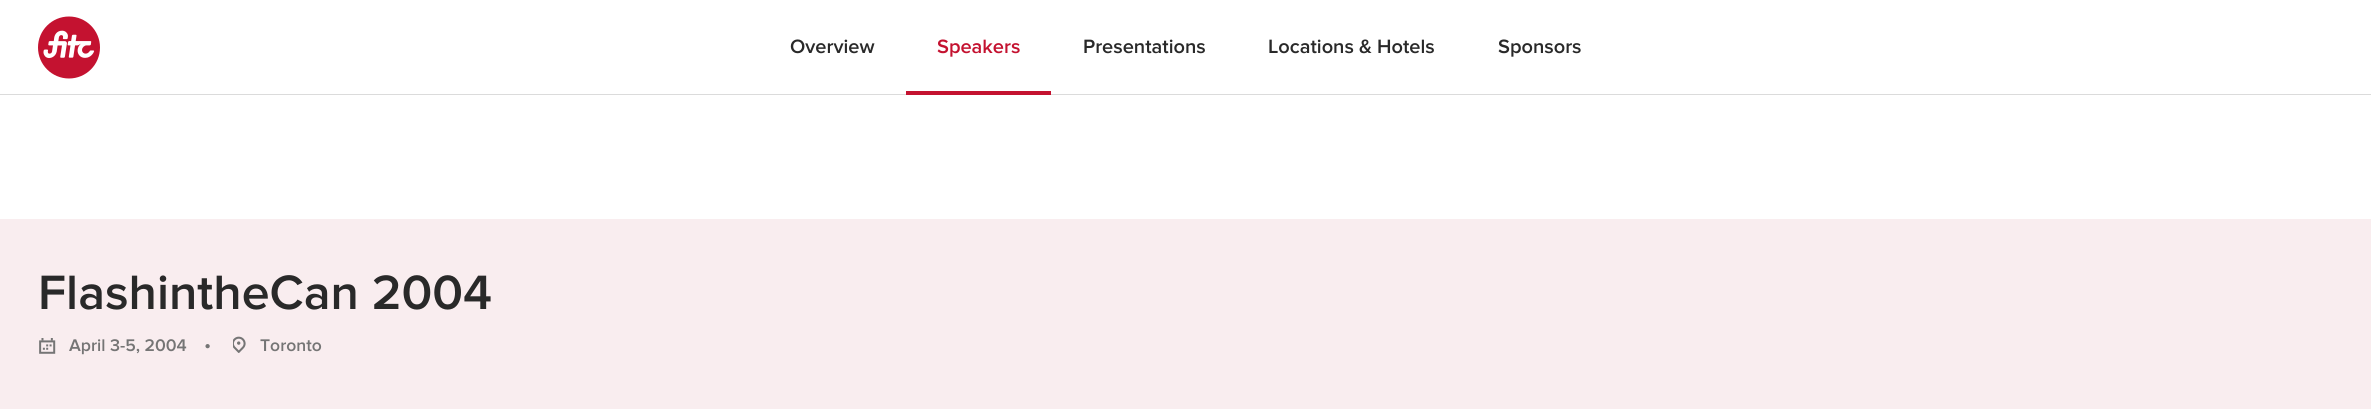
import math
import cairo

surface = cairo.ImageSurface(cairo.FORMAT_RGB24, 2371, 417)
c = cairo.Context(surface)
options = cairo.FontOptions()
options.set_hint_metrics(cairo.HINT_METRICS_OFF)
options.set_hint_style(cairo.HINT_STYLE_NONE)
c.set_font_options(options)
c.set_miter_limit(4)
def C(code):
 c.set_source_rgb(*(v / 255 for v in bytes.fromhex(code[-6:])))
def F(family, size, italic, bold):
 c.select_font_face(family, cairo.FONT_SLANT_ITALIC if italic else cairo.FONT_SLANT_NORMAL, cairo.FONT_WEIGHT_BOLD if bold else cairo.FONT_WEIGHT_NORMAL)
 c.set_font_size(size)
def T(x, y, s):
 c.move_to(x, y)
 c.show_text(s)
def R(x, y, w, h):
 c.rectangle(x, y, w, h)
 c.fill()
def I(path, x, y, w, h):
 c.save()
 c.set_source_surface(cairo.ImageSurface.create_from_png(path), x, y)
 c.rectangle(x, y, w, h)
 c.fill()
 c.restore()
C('ffffff')
c.paint()
C('dbdbdb')
R(0,94,2371,1)
I('1.png',38,16,62,63)
F('Proxima Nova SemiBold',20,0,0)
C('292929')
T(790,53,'Overview')
C('c41230')
T(937,53,'Speakers')
R(906,91,145,4)
C('292929')
T(1083,53,'Presentations')
T(1268,53,'Locations & Hotels')
T(1498,53,'Sponsors')
C('f9edef')
R(0,219,2371,190)
F('Proxima Nova SemiBold',50,0,0)
C('292929')
T(38,309,'FlashintheCan 2004')
I('2.png',39,338,17,16)
F('Proxima Nova SemiBold',17.5,0,0)
C('757575')
T(69,351,'April 3-5, 2004')
F('Proxima Nova',20,0,0)
T(204,351,'•')
I('3.png',233,336,13,17)
F('Proxima Nova SemiBold',17.5,0,0)
T(260,351,'Toronto')
surface.write_to_png('o.png')
